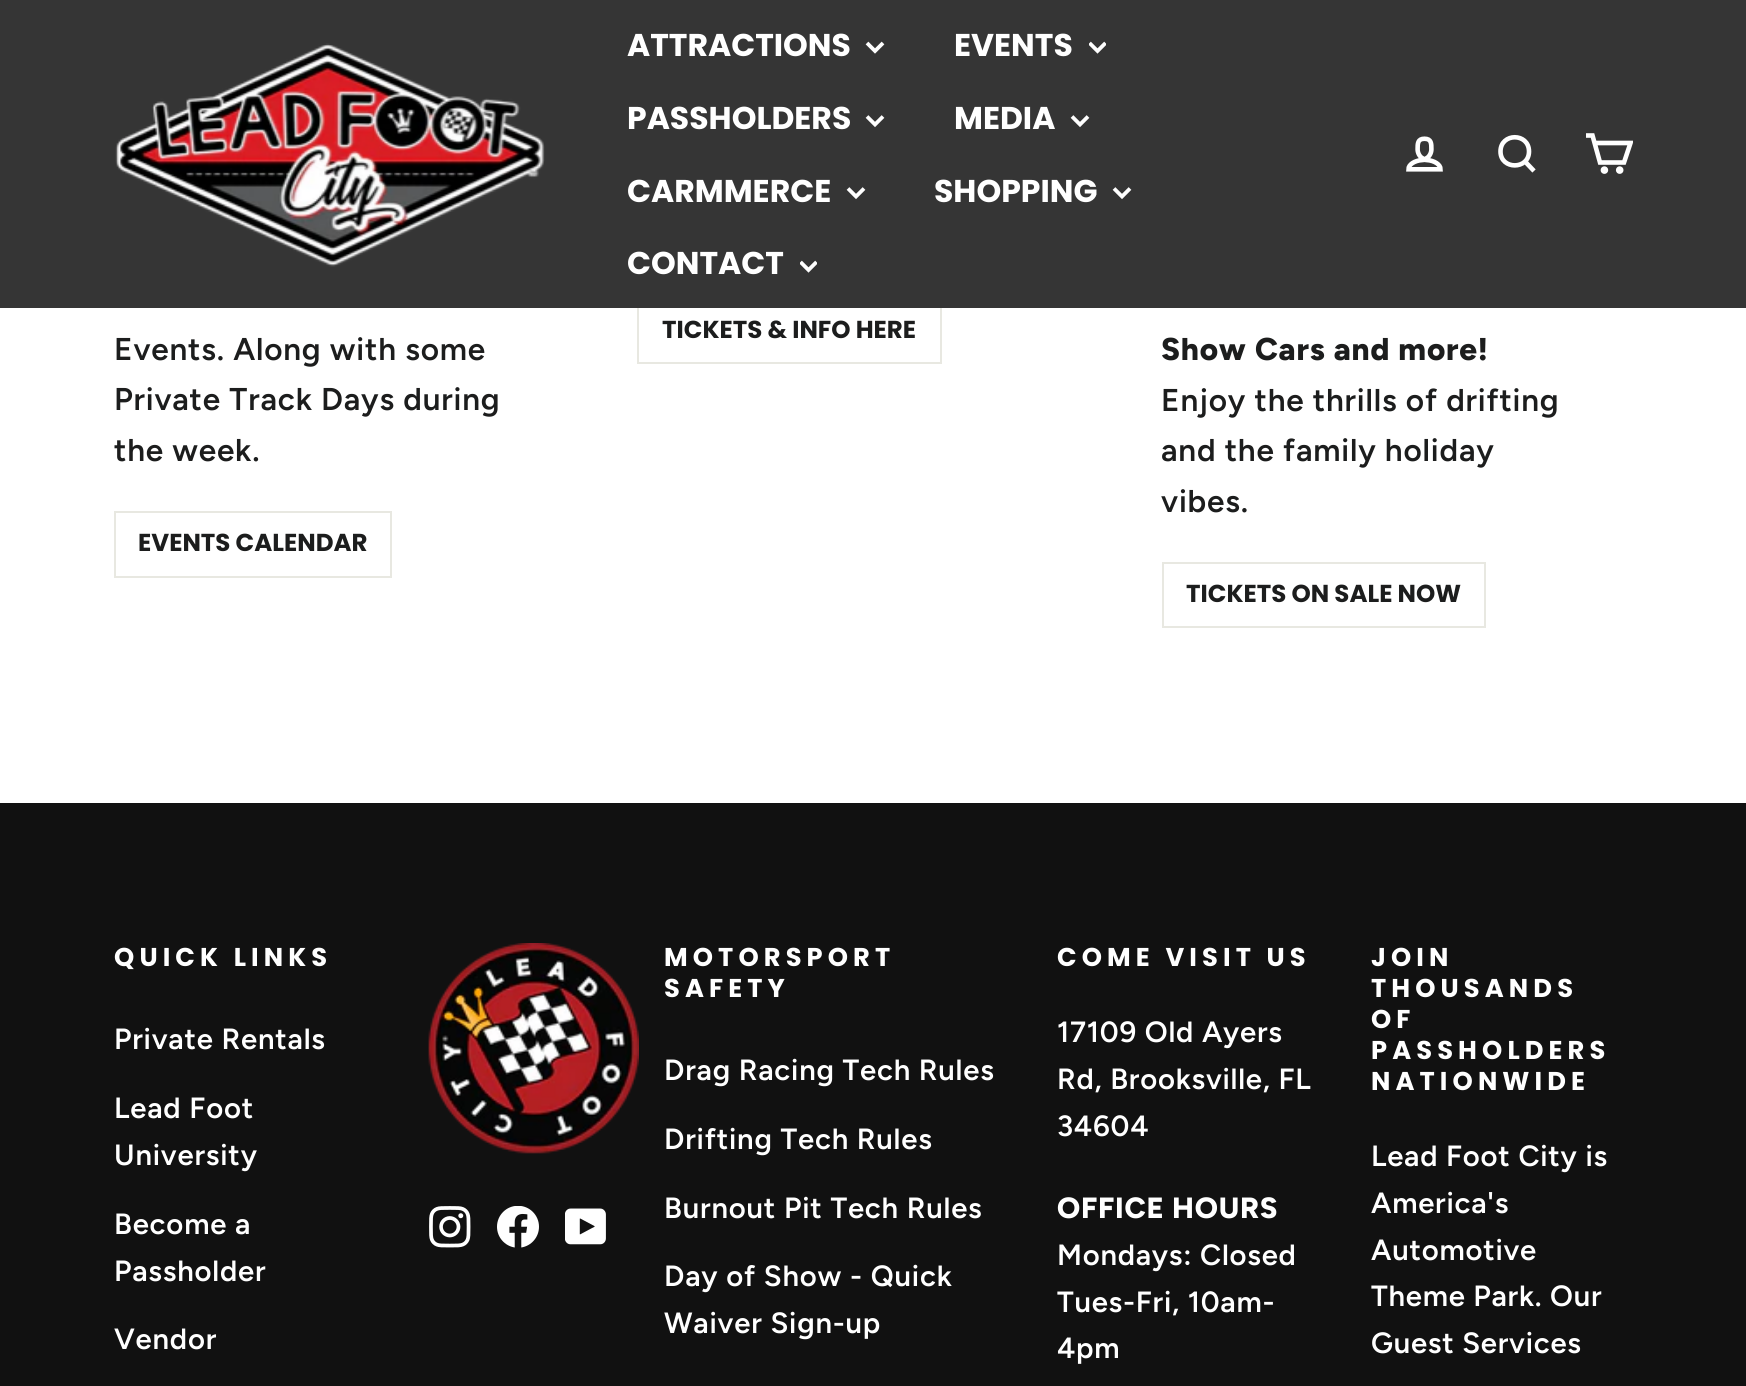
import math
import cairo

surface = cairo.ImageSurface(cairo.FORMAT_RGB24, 1746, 1386)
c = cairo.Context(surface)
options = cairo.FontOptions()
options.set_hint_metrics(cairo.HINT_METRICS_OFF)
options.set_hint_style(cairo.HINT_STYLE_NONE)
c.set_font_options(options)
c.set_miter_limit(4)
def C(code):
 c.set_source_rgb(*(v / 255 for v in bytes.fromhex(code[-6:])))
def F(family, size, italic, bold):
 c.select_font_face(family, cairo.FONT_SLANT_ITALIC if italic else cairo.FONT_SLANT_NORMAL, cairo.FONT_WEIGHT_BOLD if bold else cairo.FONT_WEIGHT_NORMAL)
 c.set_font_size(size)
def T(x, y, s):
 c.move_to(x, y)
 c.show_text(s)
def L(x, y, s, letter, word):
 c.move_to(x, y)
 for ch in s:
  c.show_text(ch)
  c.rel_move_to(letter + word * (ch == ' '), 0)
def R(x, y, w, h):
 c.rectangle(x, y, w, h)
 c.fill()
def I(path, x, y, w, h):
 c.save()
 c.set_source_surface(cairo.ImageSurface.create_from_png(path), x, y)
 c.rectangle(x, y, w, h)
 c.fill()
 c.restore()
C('ffffff')
c.paint()
c.rectangle(638,299,303,64)
C('e8e8e1')
c.stroke()
C('353535')
R(0,0,1746,308)
I('1.png',115,43,430,224)
F('Poppins',31.5,0,1)
C('ffffff')
T(627,56,'ATTRACTIONS')
c.new_path()
c.move_to(867,43)
c.line_to(875,51)
c.line_to(883,43)
c.set_line_width(3.8)
c.stroke()
T(954,56,'EVENTS')
c.save()
c.rectangle(1089,39,17,17)
c.clip()
c.new_path()
c.move_to(1089.5,43)
c.line_to(1097.5,51)
c.line_to(1105.5,43)
c.stroke()
c.restore()
T(627,129,'PASSHOLDERS')
c.new_path()
c.move_to(867,116.5)
c.line_to(875,124.5)
c.line_to(883,116.5)
c.stroke()
T(954,129,'MEDIA')
c.new_path()
c.move_to(1072,116.5)
c.line_to(1080,124.5)
c.line_to(1088,116.5)
c.stroke()
T(627,202,'CARMMERCE')
c.new_path()
c.move_to(848,188.5)
c.line_to(856,196.5)
c.line_to(864,188.5)
c.stroke()
T(934,202,'SHOPPING')
c.new_path()
c.move_to(1114,188.5)
c.line_to(1122,196.5)
c.line_to(1130,188.5)
c.stroke()
T(627,274,'CONTACT')
c.save()
c.rectangle(800,257,17,18)
c.clip()
c.new_path()
c.move_to(800.5,262)
c.line_to(808.5,270)
c.line_to(816.5,262)
c.stroke()
c.restore()
I('2.png',1406,136,37,36)
c.new_path()
c.move_to(1529,151.5)
c.curve_to(1529,170,1500.5,170,1500.5,151.5)
c.curve_to(1500.5,132.5,1529,132.5,1529,151.5)
c.close_path()
c.move_to(1534,171)
c.line_to(1525,161.5)
c.set_line_width(4.6)
c.stroke()
c.save()
c.rectangle(1584,130,49,49)
c.clip()
c.new_path()
c.move_to(1594.5,143)
c.line_to(1630.5,143)
c.line_to(1624,162.5)
c.line_to(1600,162.5)
c.line_to(1592.5,135.5)
c.line_to(1586,135.5)
c.stroke()
c.restore()
c.arc(1604.4,170.1,1.5,0,2 * math.pi)
c.fill_preserve()
c.stroke()
c.arc(1619.7,170.1,1.5,0,2 * math.pi)
c.fill_preserve()
c.stroke()
F('Poppins',24.5,0,1)
C('1c1d1d')
T(662,338,'TICKETS & INFO HERE')
F('Figtree SemiBold',31.5,0,0)
L(114,360,'Events. Along with some',.8,0)
L(114,410,'Private Track Days during',.8,0)
L(114,461,'the week.',.8,0)
c.rectangle(115,512,276,65)
C('e8e8e1')
c.set_line_width(2)
c.stroke()
F('Poppins',24.5,0,1)
C('1c1d1d')
T(138,551,'EVENTS CALENDAR')
F('Figtree ExtraBold',31.5,0,0)
L(1161,360,'Show Cars and more!',.8,0)
F('Figtree SemiBold',31.5,0,0)
L(1161,411,'Enjoy the thrills of drifting',.8,0)
L(1161,461,'and the family holiday',.8,0)
L(1161,512,'vibes.',.8,0)
c.rectangle(1163,563,322,64)
C('e8e8e1')
c.stroke()
F('Poppins',24.5,0,1)
C('1c1d1d')
T(1186,602,'TICKETS ON SALE NOW')
C('111111')
R(0,803,1746,583)
F('Poppins',25.75,0,1)
C('ffffff')
L(114,966,'QUICK LINKS',5.1,0)
F('Figtree SemiBold',29.25,0,0)
L(114,1049,'Private Rentals',.8,0)
L(114,1118,'Lead Foot',.8,0)
L(114,1165,'University',.8,0)
L(114,1234,'Become a',.8,0)
L(114,1281,'Passholder',.8,0)
L(114,1349,'Vendor',.8,0)
I('3.png',428,943,211,211)
I('4.png',429,1206,42,42)
I('5.png',497,1206,42,42)
I('6.png',565,1208,41,37)
F('Poppins',25.75,0,1)
L(664,966,'MOTORSPORT',5.1,0)
L(664,997,'SAFETY',5.1,0)
F('Figtree SemiBold',29.25,0,0)
L(664,1080,'Drag Racing Tech Rules',.8,0)
L(664,1149,'Drifting Tech Rules',.8,0)
L(664,1218,'Burnout Pit Tech Rules',.8,0)
L(664,1286,'Day of Show - Quick',.8,0)
L(664,1333,'Waiver Sign-up',.8,0)
F('Poppins',25.75,0,1)
L(1057,966,'COME VISIT US',5.1,0)
F('Figtree SemiBold',29.25,0,0)
L(1057,1042,'17109 Old Ayers',.75,0)
L(1057,1089,'Rd, Brooksville, FL',.75,0)
L(1057,1136,'34604',.75,0)
F('Figtree ExtraBold',29.25,0,0)
L(1057,1218,'OFFICE HOURS',.75,0)
F('Figtree SemiBold',29.25,0,0)
L(1057,1265,'Mondays: Closed',.75,0)
L(1057,1312,'Tues-Fri, 10am-',.75,0)
L(1057,1358,'4pm',.75,0)
F('Poppins',25.75,0,1)
L(1371,966,'JOIN',5.1,0)
L(1371,997,'THOUSANDS',5.1,0)
L(1371,1028,'OF',5.1,0)
L(1371,1059,'PASSHOLDERS',5.1,0)
L(1371,1090,'NATIONWIDE',5.1,0)
F('Figtree SemiBold',29.25,0,0)
L(1371,1166,'Lead Foot City is',.75,0)
L(1371,1213,'America\'s',.75,0)
L(1371,1260,'Automotive',.75,0)
L(1371,1306,'Theme Park. Our',.75,0)
L(1371,1353,'Guest Services',.75,0)
surface.write_to_png('o.png')
